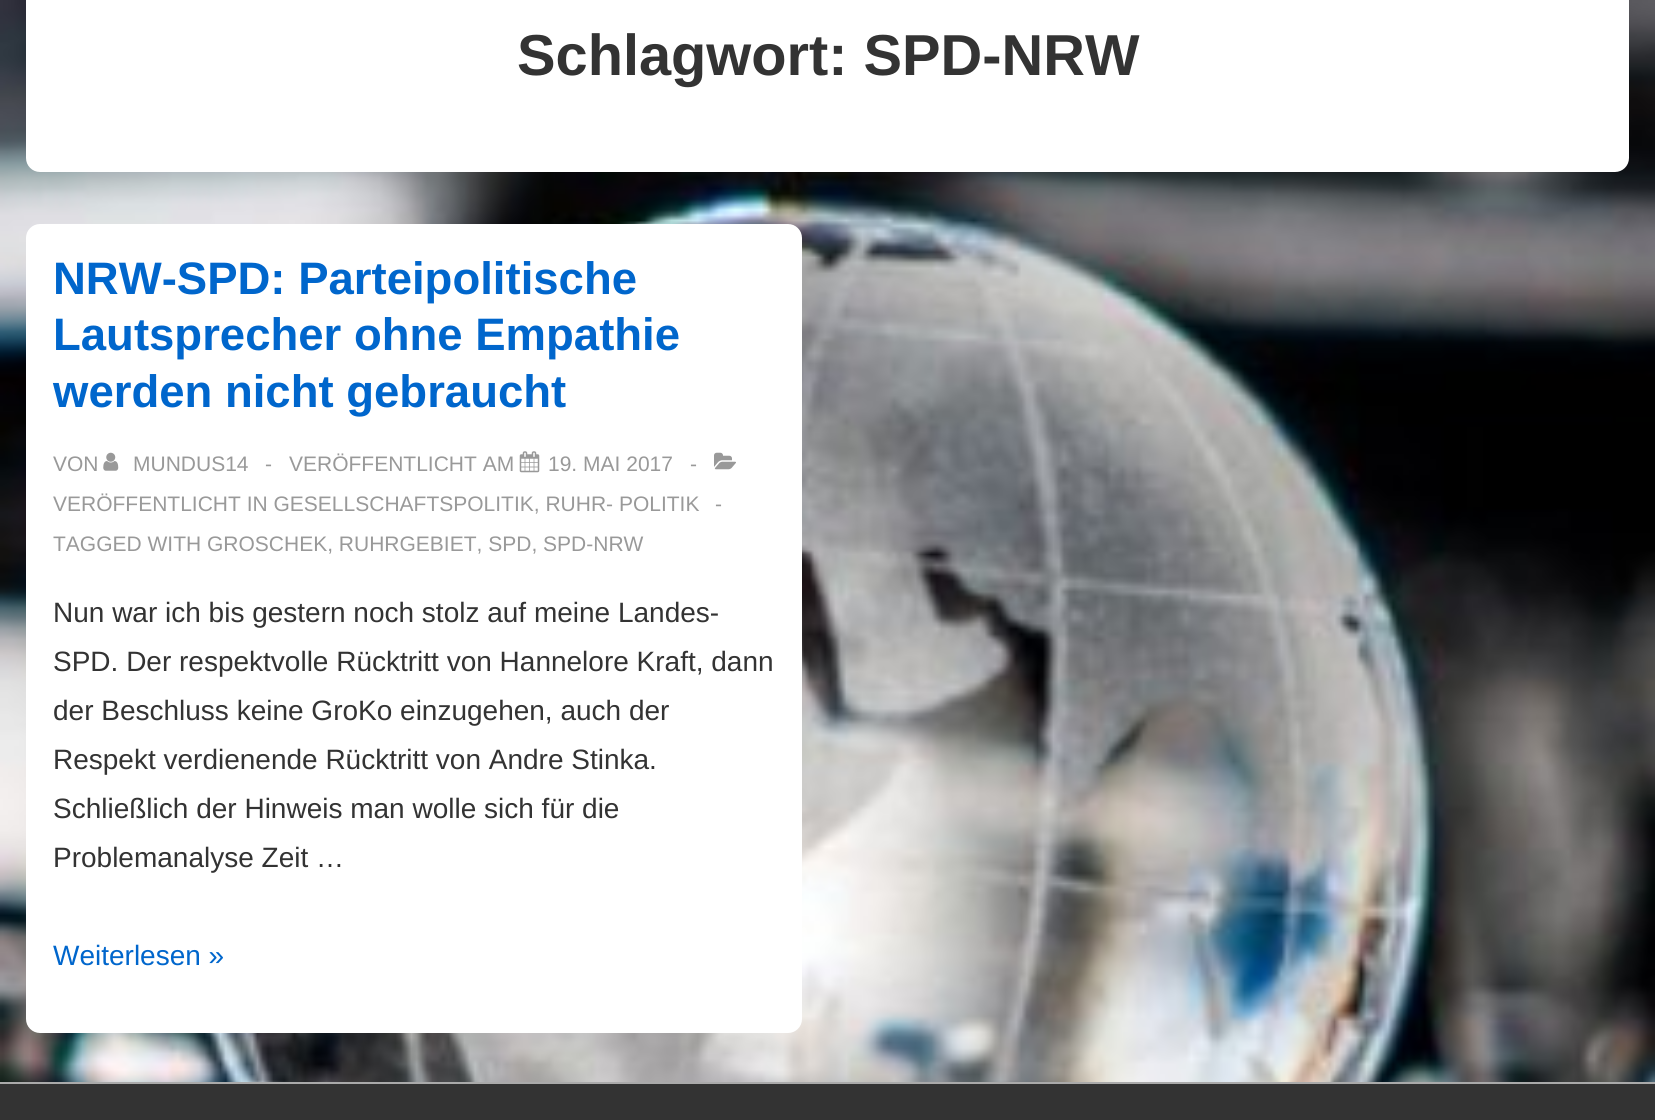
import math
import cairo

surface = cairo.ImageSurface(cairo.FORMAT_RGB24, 1655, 1120)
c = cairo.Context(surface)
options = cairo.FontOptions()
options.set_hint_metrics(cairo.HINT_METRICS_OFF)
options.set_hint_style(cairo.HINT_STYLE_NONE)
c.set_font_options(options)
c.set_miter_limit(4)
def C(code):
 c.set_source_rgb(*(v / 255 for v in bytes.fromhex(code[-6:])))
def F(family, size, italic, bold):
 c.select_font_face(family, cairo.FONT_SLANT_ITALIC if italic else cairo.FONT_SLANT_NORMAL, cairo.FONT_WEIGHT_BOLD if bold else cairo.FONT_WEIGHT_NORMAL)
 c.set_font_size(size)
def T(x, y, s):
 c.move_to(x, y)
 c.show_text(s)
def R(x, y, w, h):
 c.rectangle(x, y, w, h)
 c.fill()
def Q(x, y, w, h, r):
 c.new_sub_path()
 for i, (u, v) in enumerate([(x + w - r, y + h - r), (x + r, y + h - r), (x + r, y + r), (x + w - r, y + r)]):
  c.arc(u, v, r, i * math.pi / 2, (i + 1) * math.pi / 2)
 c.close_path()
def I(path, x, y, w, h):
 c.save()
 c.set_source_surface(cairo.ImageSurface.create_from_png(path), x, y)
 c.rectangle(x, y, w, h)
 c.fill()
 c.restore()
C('ffffff')
c.paint()
I('1.png',0,0,1655,1082)
C('ffffff')
Q(26,-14,1603,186,14)
c.fill()
F('Liberation Sans',57.75,0,1)
C('333333')
T(517,75,'Schlagwort: SPD-NRW')
C('ffffff')
Q(26,224,776,809,14)
c.fill()
F('Liberation Sans',45.5,0,1)
C('0066cc')
T(53,294,'NRW-SPD: Parteipolitische')
T(53,350,'Lautsprecher ohne Empathie')
T(53,407,'werden nicht gebraucht')
F('Liberation Sans',21,0,0)
C('999999')
T(53,471,'VON')
I('2.png',103,452,16,19)
T(133,471,'MUNDUS14')
T(265,471,'-')
T(289,471,'VERÖFFENTLICHT AM')
I('3.png',519,451,21,22)
T(548,471,'19. MAI 2017')
T(690,471,'-')
I('4.png',714,452,22,18)
T(53,511,'VERÖFFENTLICHT IN GESELLSCHAFTSPOLITIK, RUHR- POLITIK')
T(715,511,'-')
T(53,551,'TAGGED WITH GROSCHEK, RUHRGEBIET, SPD, SPD-NRW')
F('Liberation Sans',28,0,0)
C('333333')
T(53,622,'Nun war ich bis gestern noch stolz auf meine Landes-')
T(53,671,'SPD. Der respektvolle Rücktritt von Hannelore Kraft, dann')
T(53,720,'der Beschluss keine GroKo einzugehen, auch der')
T(53,769,'Respekt verdienende Rücktritt von Andre Stinka.')
T(53,818,'Schließlich der Hinweis man wolle sich für die')
T(53,867,'Problemanalyse Zeit …')
C('0066cc')
T(53,965,'Weiterlesen »')
C('333333')
R(0,1084,1655,36)
C('aaaaaa')
R(0,1082,1655,2)
surface.write_to_png('o.png')
